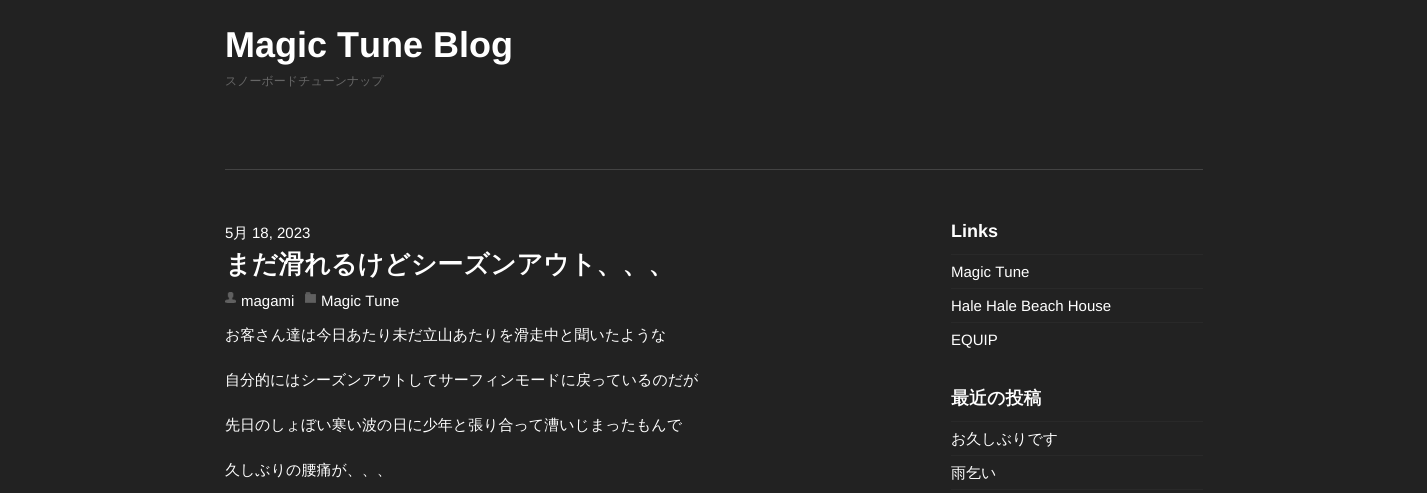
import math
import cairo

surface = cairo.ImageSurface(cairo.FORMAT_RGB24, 1427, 493)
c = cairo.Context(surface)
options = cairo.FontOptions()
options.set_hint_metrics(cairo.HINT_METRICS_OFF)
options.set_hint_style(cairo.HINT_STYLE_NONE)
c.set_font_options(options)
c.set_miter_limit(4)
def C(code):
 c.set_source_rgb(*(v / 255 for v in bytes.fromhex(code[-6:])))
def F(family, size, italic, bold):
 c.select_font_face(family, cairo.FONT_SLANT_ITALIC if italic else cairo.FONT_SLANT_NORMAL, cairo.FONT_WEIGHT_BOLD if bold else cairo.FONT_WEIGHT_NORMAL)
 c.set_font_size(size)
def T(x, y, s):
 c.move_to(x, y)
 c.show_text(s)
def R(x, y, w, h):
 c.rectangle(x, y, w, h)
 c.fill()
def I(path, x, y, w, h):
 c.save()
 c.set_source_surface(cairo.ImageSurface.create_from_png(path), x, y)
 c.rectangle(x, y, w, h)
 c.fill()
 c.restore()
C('222222')
c.paint()
C('434343')
R(225,169,978,1)
F('Liberation Sans',36,0,1)
C('ffffff')
T(225,57,'Magic Tune Blog')
F('WenQuanYi Zen Hei Medium',12,0,0)
C('666666')
T(225,85,'スノーボードチューンナップ')
F('Liberation Sans',15,0,0)
C('ffffff')
T(225,238,'5')
F('WenQuanYi Zen Hei Medium',15,0,0)
T(233,238,'月')
F('Liberation Sans',15,0,0)
T(252,238,'18, 2023')
F('WenQuanYi Zen Hei',26,0,1)
T(225,273,'まだ滑れるけどシーズンアウト、、、')
I('1.png',225,292,11,11)
F('Liberation Sans',15,0,0)
T(241,306,'magami')
I('2.png',305,292,11,11)
T(321,306,'Magic Tune')
F('WenQuanYi Zen Hei Medium',15,0,0)
T(225,340,'お客さん達は今日あたり未だ立山あたりを滑走中と聞いたような')
T(225,385,'自分的にはシーズンアウトしてサーフィンモードに戻っているのだが')
T(225,430,'先日のしょぼい寒い波の日に少年と張り合って漕いじまったもんで')
T(225,475,'久しぶりの腰痛が、、、')
F('Liberation Sans',18,0,1)
T(951,237,'Links')
C('292929')
R(951,254,252,1)
F('Liberation Sans',15,0,0)
C('ffffff')
T(951,277,'Magic Tune')
C('292929')
R(951,288,252,1)
C('ffffff')
T(951,311,'Hale Hale Beach House')
C('292929')
R(951,322,252,1)
C('ffffff')
T(951,345,'EQUIP')
F('WenQuanYi Zen Hei',18,0,1)
T(951,404,'最近の投稿')
C('292929')
R(951,421,252,1)
F('WenQuanYi Zen Hei Medium',15,0,0)
C('ffffff')
T(951,444,'お久しぶりです')
C('292929')
R(951,455,252,1)
C('ffffff')
T(951,478,'雨乞い')
C('292929')
R(951,489,252,1)
surface.write_to_png('o.png')
